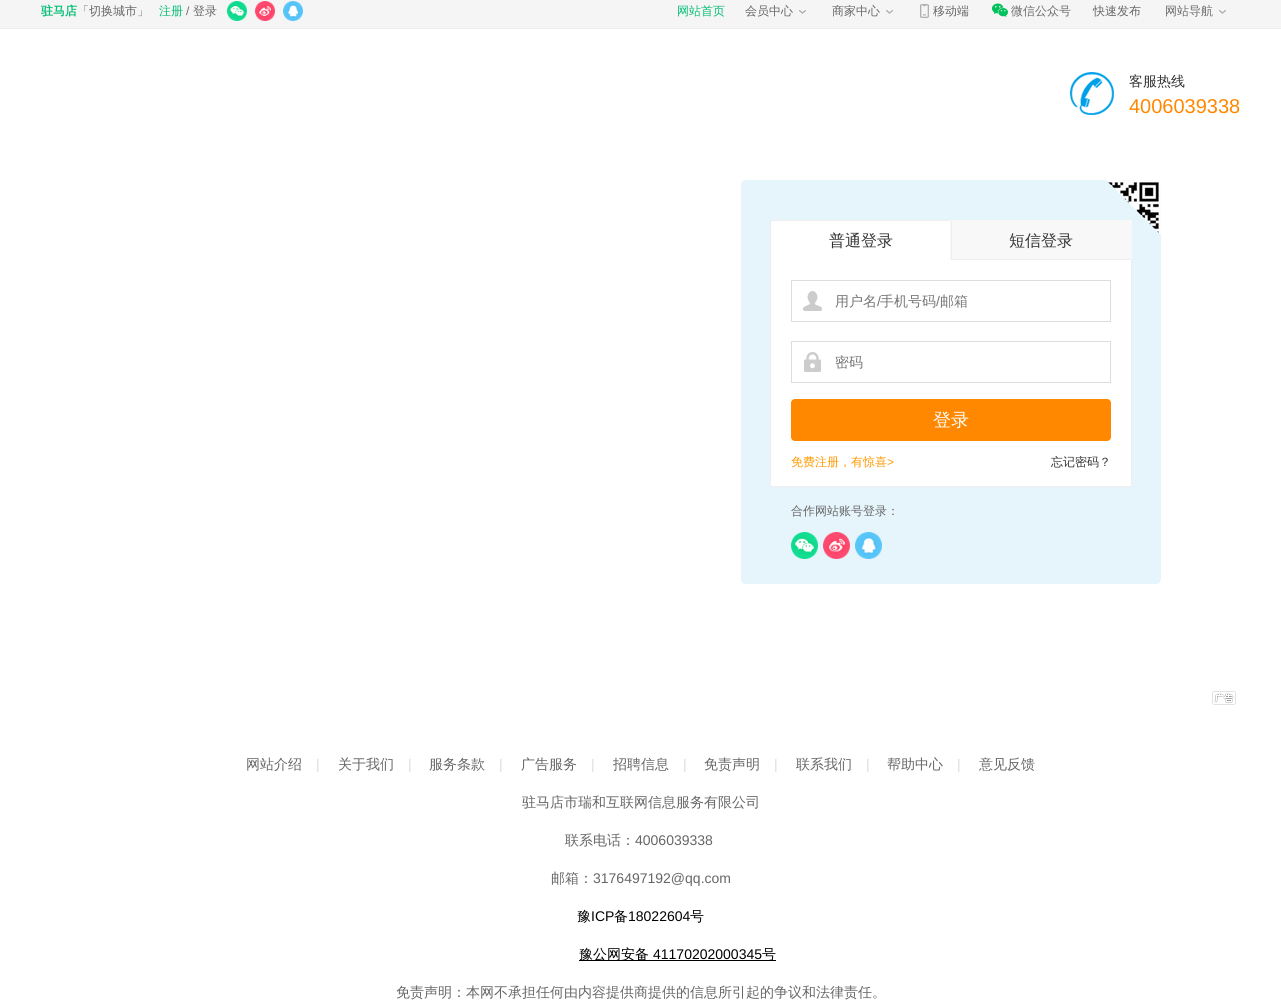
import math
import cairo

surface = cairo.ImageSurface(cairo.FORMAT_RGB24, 1281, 1006)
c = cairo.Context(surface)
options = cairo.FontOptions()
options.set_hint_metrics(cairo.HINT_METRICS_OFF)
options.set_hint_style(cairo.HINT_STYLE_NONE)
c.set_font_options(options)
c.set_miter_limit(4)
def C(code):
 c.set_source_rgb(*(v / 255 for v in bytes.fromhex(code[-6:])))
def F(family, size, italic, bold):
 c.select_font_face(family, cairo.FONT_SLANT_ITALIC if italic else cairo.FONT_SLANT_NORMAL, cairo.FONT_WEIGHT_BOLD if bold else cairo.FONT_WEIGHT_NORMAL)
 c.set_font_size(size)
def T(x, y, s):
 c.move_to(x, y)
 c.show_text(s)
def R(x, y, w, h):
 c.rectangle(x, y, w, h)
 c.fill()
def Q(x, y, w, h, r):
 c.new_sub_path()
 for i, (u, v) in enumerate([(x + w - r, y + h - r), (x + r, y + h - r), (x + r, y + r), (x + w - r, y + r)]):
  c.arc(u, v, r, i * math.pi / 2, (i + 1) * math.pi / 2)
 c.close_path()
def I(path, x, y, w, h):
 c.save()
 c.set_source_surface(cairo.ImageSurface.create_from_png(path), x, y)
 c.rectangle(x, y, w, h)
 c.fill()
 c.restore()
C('ffffff')
c.paint()
C('f5f5f5')
R(0,0,1281,28)
C('eeeeee')
R(0,28,1281,1)
F('WenQuanYi Zen Hei',12,0,1)
C('07bf77')
T(41,15,'驻马店')
F('WenQuanYi Zen Hei Medium',12,0,0)
C('6c6c6c')
T(77,15,'「')
C('666666')
T(89,15,'切换城市')
C('6c6c6c')
T(137,15,'」')
C('07bf77')
T(159,15,'注册')
F('Liberation Sans',12,0,0)
C('6c6c6c')
T(186,15,'/')
F('WenQuanYi Zen Hei Medium',12,0,0)
C('666666')
T(193,15,'登录')
I('1.png',227,1,20,20)
I('2.png',255,1,20,20)
I('3.png',283,1,20,20)
C('07bf77')
T(677,15,'网站首页')
C('666666')
T(745,15,'会员中心')
I('4.png',799,10,7,4)
T(832,15,'商家中心')
I('4.png',886,10,7,4)
I('5.png',920,4,9,14)
T(933,15,'移动端')
I('6.png',992,3,16,14)
C('6c6c6c')
T(1011,15,'微信公众号')
C('666666')
T(1093,15,'快速发布')
C('6c6c6c')
T(1165,15,'网站导航')
I('4.png',1219,10,7,4)
I('7.png',1070,72,44,43)
F('WenQuanYi Zen Hei Medium',14,0,0)
C('333333')
T(1129,86,'客服热线')
F('Liberation Sans',20,0,0)
C('ff8800')
T(1129,113,'4006039338')
C('e6f5fc')
Q(741,180,420,404,5)
c.fill()
C('f8f8f8')
R(952,221,179,38)
C('eeeeee')
R(770,220,182,1)
R(951,220,1,40)
C('f8f8f8')
R(950,220,182,1)
R(1131,220,1,40)
I('8.png',1106,180,55,55)
C('eeeeee')
R(952,259,179,1)
C('ffffff')
R(771,221,179,39)
C('eeeeee')
R(770,220,1,40)
F('WenQuanYi Zen Hei Medium',16,0,0)
C('333333')
T(829,246,'普通登录')
C('f8f8f8')
R(950,220,1,40)
C('333333')
T(1009,246,'短信登录')
C('ffffff')
R(771,260,360,226)
C('eeeeee')
R(1131,260,1,227)
R(770,486,362,1)
R(770,260,1,227)
c.rectangle(791.5,280.5,319,41)
C('dddddd')
c.set_line_width(1)
c.stroke()
I('9.png',803,291,19,20)
F('WenQuanYi Zen Hei Medium',14,0,0)
C('757575')
T(835,306,'用户名')
F('Liberation Sans',14,0,0)
T(877,306,'/')
F('WenQuanYi Zen Hei Medium',14,0,0)
T(880,306,'手机号码')
F('Liberation Sans',14,0,0)
T(936,306,'/')
F('WenQuanYi Zen Hei Medium',14,0,0)
T(940,306,'邮箱')
c.rectangle(791.5,341.5,319,41)
C('dddddd')
c.stroke()
I('10.png',804,352,17,20)
C('757575')
T(835,367,'密码')
C('ff8800')
Q(791,399,320,42,4)
c.fill()
F('WenQuanYi Zen Hei Medium',18,0,0)
C('ffffff')
T(933,426,'登录')
F('WenQuanYi Zen Hei Medium',12,0,0)
C('ff9900')
T(791,466,'免费注册，有惊喜')
F('Liberation Sans',12,0,0)
T(887,466,'>')
F('WenQuanYi Zen Hei Medium',12,0,0)
C('333333')
T(1051,466,'忘记密码？')
C('666666')
T(791,515,'合作网站账号登录：')
I('11.png',791,532,27,27)
I('12.png',823,532,27,27)
I('13.png',855,532,27,27)
I('14.png',1212,691,24,14)
F('WenQuanYi Zen Hei Medium',14,0,0)
T(246,769,'网站介绍')
F('Liberation Sans',14,0,0)
C('dddddd')
T(316,769,'|')
F('WenQuanYi Zen Hei Medium',14,0,0)
C('666666')
T(338,769,'关于我们')
F('Liberation Sans',14,0,0)
C('dddddd')
T(408,769,'|')
F('WenQuanYi Zen Hei Medium',14,0,0)
C('666666')
T(429,769,'服务条款')
F('Liberation Sans',14,0,0)
C('dddddd')
T(499,769,'|')
F('WenQuanYi Zen Hei Medium',14,0,0)
C('666666')
T(521,769,'广告服务')
F('Liberation Sans',14,0,0)
C('dddddd')
T(591,769,'|')
F('WenQuanYi Zen Hei Medium',14,0,0)
C('666666')
T(613,769,'招聘信息')
F('Liberation Sans',14,0,0)
C('dddddd')
T(683,769,'|')
F('WenQuanYi Zen Hei Medium',14,0,0)
C('666666')
T(704,769,'免责声明')
F('Liberation Sans',14,0,0)
C('dddddd')
T(774,769,'|')
F('WenQuanYi Zen Hei Medium',14,0,0)
C('666666')
T(796,769,'联系我们')
F('Liberation Sans',14,0,0)
C('dddddd')
T(866,769,'|')
F('WenQuanYi Zen Hei Medium',14,0,0)
C('666666')
T(887,769,'帮助中心')
F('Liberation Sans',14,0,0)
C('dddddd')
T(957,769,'|')
F('WenQuanYi Zen Hei Medium',14,0,0)
C('666666')
T(979,769,'意见反馈')
T(522,807,'驻马店市瑞和互联网信息服务有限公司')
T(565,845,'联系电话：')
F('Liberation Sans',14,0,0)
T(635,845,'4006039338')
F('WenQuanYi Zen Hei Medium',14,0,0)
T(551,883,'邮箱：')
F('Liberation Sans',14,0,0)
T(593,883,'3176497192@qq.com')
F('WenQuanYi Zen Hei Medium',14,0,0)
C('000000')
T(577,921,'豫')
F('Liberation Sans',14,0,0)
T(591,921,'ICP')
F('WenQuanYi Zen Hei Medium',14,0,0)
T(614,921,'备')
F('Liberation Sans',14,0,0)
T(628,921,'18022604')
F('WenQuanYi Zen Hei Medium',14,0,0)
T(690,921,'号')
R(579,960,197,1)
T(579,959,'豫公网安备')
F('Liberation Sans',14,0,0)
T(653,959,'41170202000345')
F('WenQuanYi Zen Hei Medium',14,0,0)
T(762,959,'号')
C('666666')
T(396,997,'免责声明：本网不承担任何由内容提供商提供的信息所引起的争议和法律责任。')
surface.write_to_png('o.png')
